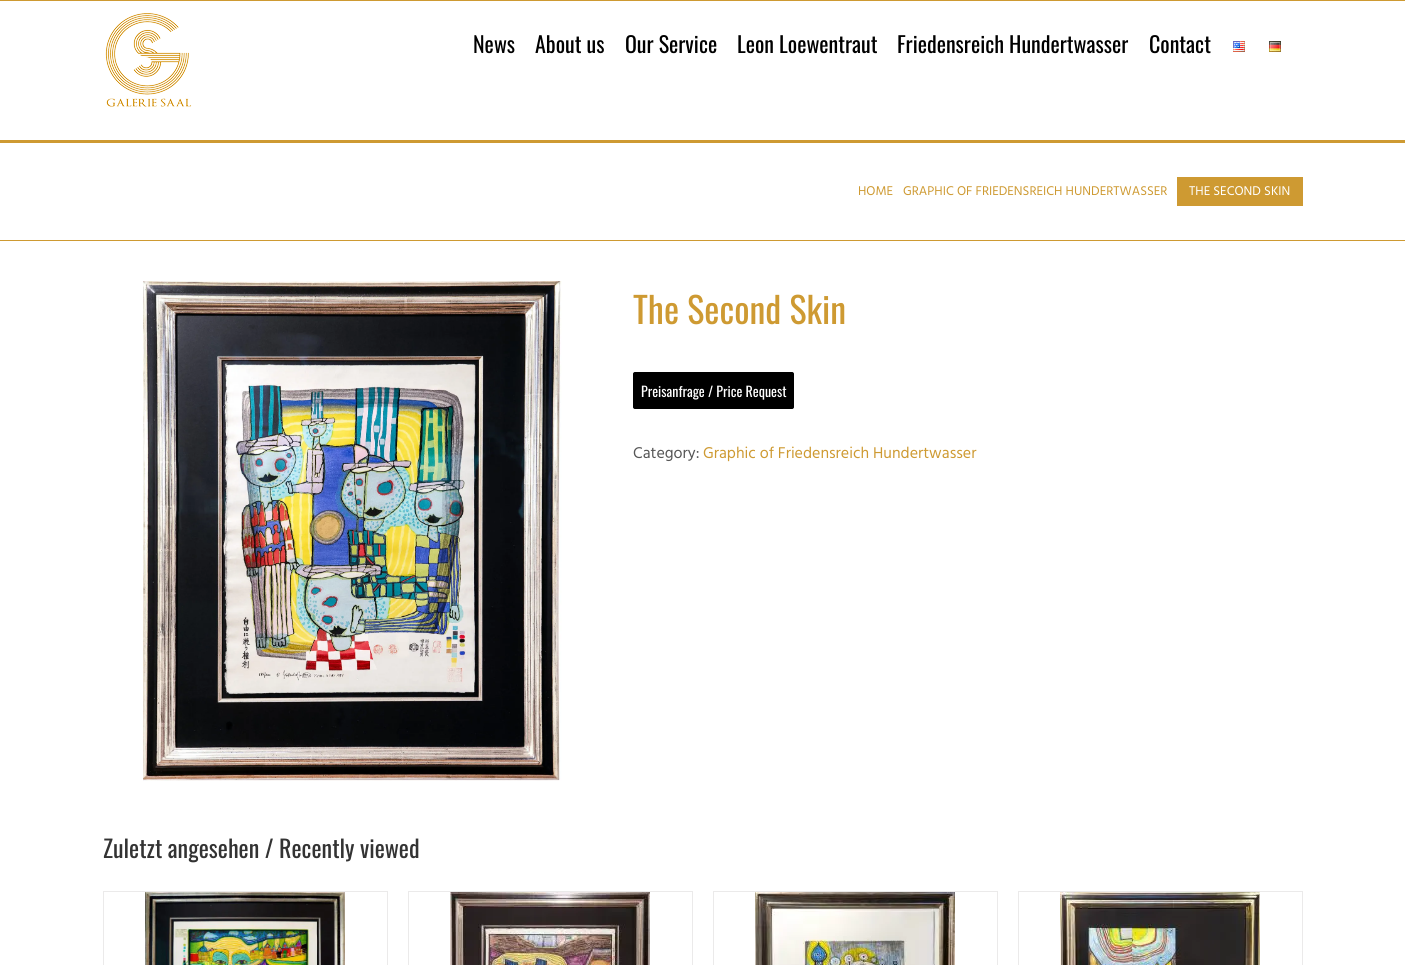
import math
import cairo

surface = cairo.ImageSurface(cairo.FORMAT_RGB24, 1405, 965)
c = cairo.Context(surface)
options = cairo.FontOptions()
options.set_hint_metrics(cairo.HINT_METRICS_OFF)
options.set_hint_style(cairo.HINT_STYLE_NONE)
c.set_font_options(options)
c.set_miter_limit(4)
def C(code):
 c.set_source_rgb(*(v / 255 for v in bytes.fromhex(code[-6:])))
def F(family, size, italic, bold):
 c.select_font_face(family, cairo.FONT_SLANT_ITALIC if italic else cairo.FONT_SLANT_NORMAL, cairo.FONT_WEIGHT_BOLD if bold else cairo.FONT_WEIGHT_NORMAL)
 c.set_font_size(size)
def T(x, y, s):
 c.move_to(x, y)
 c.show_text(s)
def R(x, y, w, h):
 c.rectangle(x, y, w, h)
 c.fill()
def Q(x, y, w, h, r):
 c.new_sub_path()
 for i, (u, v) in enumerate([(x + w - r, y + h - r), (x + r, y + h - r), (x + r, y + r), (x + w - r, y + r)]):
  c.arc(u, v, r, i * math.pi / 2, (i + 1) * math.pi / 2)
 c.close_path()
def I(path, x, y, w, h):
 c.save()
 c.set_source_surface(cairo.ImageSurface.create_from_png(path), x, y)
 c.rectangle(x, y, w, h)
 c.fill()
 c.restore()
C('ffffff')
c.paint()
C('ce9a32')
R(0,0,1405,1)
I('1.png',105,13,87,94)
F('Oswald',22,0,0)
C('000000')
T(473,53,'News')
T(535,53,'About us')
T(625,53,'Our Service')
T(737,53,'Leon Loewentraut')
T(897,53,'Friedensreich Hundertwasser')
T(1149,53,'Contact')
I('2.png',1233,41,12,11)
I('3.png',1269,41,12,11)
C('ce9a32')
R(0,240,1405,1)
R(0,140,1405,3)
F('Hind',13,0,0)
T(858,195,'HOME')
T(903,195,'GRAPHIC OF FRIEDENSREICH HUNDERTWASSER')
R(1177,177,126,29)
C('ffffff')
T(1189,195,'THE SECOND SKIN')
I('4.png',143,281,419,500)
F('Oswald',36,0,0)
C('ce9a32')
T(633,324,'The Second Skin')
C('000000')
Q(633.5,372.5,160,36,1.5)
c.fill_preserve()
c.set_line_width(1)
c.stroke()
F('Oswald',14,0,0)
C('ffffff')
T(641,397,'Preisanfrage / Price Request')
F('Hind',16,0,0)
C('555555')
T(633,458,'Category:')
C('ce9a32')
T(703,458,'Graphic of Friedensreich Hundertwasser')
F('Oswald',24,0,0)
C('333333')
T(103,858,'Zuletzt angesehen / Recently viewed')
C('ebeaea')
R(103,891,285,1)
R(387,891,1,74)
R(103,891,1,74)
I('5.png',145,892,200,73)
R(408,891,285,1)
R(692,891,1,74)
R(408,891,1,74)
I('6.png',450,892,200,73)
R(713,891,285,1)
R(997,891,1,74)
R(713,891,1,74)
I('7.png',755,892,200,73)
R(1018,891,285,1)
R(1302,891,1,74)
R(1018,891,1,74)
I('8.png',1060,892,200,73)
surface.write_to_png('o.png')
